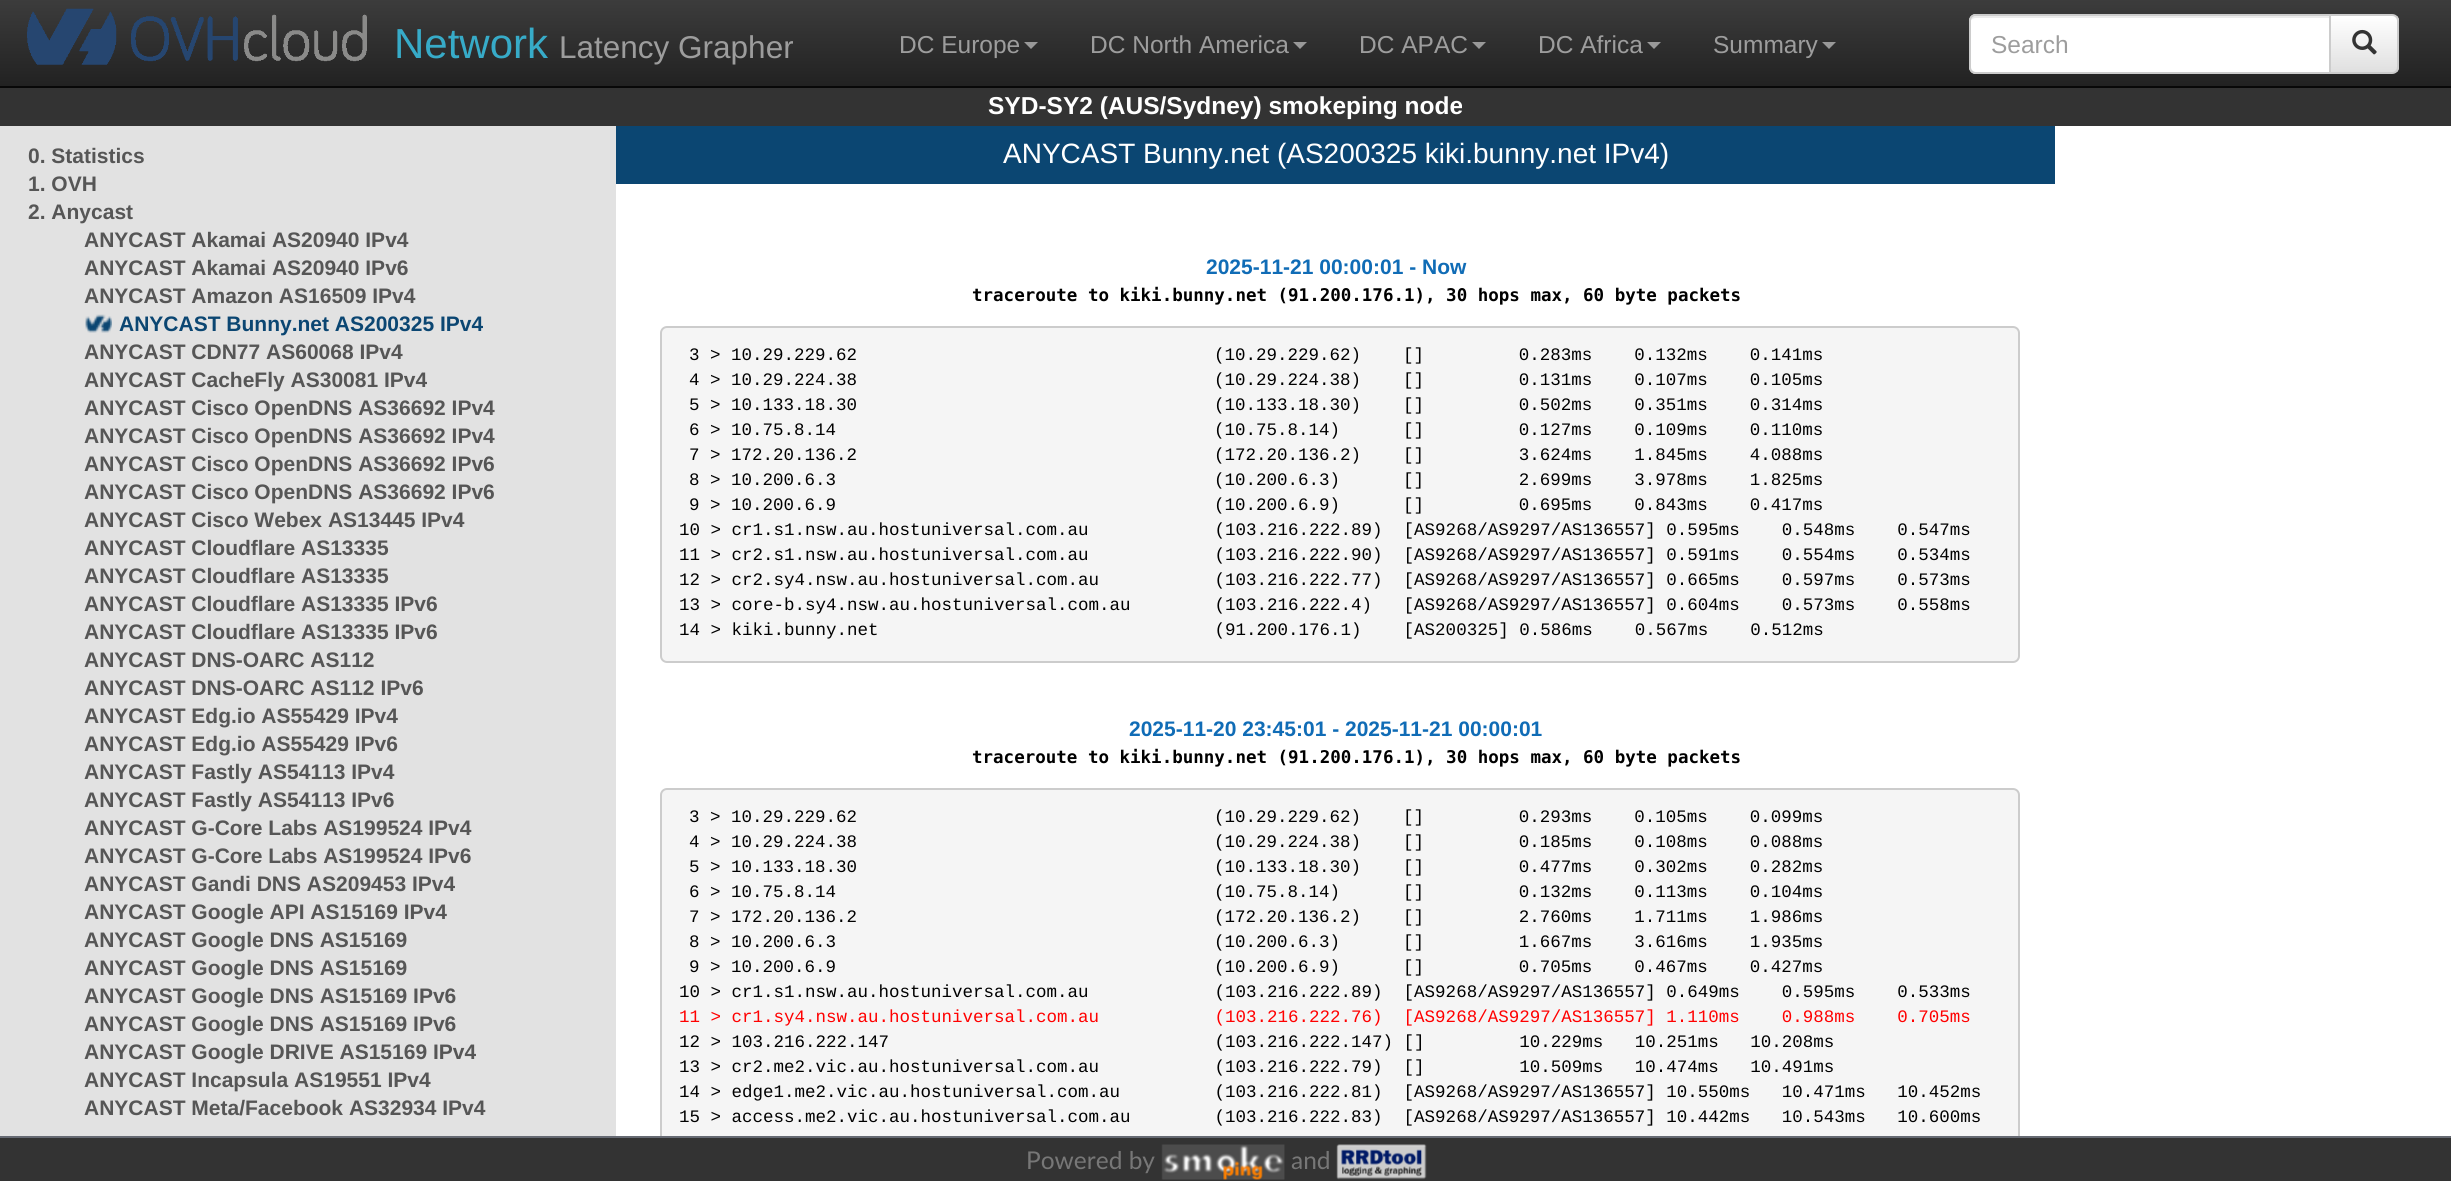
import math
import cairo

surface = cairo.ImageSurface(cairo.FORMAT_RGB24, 2451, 1181)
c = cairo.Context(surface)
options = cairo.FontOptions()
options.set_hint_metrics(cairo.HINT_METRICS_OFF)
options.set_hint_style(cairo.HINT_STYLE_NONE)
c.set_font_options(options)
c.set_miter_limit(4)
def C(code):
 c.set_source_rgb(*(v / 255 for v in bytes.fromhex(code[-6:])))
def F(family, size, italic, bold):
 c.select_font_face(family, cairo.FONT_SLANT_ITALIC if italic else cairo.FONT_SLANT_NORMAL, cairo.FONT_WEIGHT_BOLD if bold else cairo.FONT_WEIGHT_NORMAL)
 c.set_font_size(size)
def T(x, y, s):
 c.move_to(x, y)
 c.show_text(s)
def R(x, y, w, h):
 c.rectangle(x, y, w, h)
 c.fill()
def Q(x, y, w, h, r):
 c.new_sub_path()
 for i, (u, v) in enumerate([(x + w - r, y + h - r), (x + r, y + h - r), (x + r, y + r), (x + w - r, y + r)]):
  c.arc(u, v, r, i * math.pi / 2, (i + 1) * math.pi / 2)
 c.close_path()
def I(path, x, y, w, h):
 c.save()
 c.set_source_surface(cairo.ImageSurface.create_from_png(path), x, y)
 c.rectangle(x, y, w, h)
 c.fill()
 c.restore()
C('ffffff')
c.paint()
gradient = cairo.LinearGradient(1226,0,1226,86)
gradient.add_color_stop_rgba(0,0.235,0.235,0.235,1)
gradient.add_color_stop_rgba(1,0.133,0.133,0.133,1)
c.set_source(gradient)
R(0,0,2451,86)
C('080808')
R(0,86,2451,2)
I('1.png',27,8,340,57)
F('Liberation Sans',42,0,0)
C('37abc8')
T(394,58,'Network')
F('Liberation Sans',31.5,0,0)
C('9d9d9d')
T(559,58,'Latency Grapher')
F('Liberation Sans',24.5,0,0)
T(899,53,'DC Europe')
C('999999')
c.new_path()
c.move_to(1024,42)
c.line_to(1038,42)
c.line_to(1031,49)
c.close_path()
c.fill()
C('9d9d9d')
T(1090,53,'DC North America')
C('999999')
c.new_path()
c.move_to(1293,42)
c.line_to(1307,42)
c.line_to(1300,49)
c.close_path()
c.fill()
C('9d9d9d')
T(1359,53,'DC APAC')
C('999999')
c.new_path()
c.move_to(1472,42)
c.line_to(1486,42)
c.line_to(1479,49)
c.close_path()
c.fill()
C('9d9d9d')
T(1538,53,'DC Africa')
C('999999')
c.new_path()
c.move_to(1647,42)
c.line_to(1661,42)
c.line_to(1654,49)
c.close_path()
c.fill()
C('9d9d9d')
T(1713,53,'Summary')
C('999999')
c.new_path()
c.move_to(1822,42)
c.line_to(1836,42)
c.line_to(1829,49)
c.close_path()
c.fill()
c.save()
c.new_path()
c.move_to(2329,14)
c.line_to(2392,14)
c.curve_to(2396,14,2399,17,2399,21)
c.line_to(2399,67)
c.curve_to(2399,71,2396,74,2392,74)
c.line_to(2329,74)
c.close_path()
c.clip()
gradient = cairo.LinearGradient(2364,16,2364,72)
gradient.add_color_stop_rgba(0,1,1,1,1)
gradient.add_color_stop_rgba(1,0.878,0.878,0.878,1)
c.set_source(gradient)
R(2331,16,68,56)
c.restore()
c.new_path()
c.move_to(2330,15)
c.line_to(2392,15)
c.curve_to(2395.5,15,2398,17.5,2398,21)
c.line_to(2398,67)
c.curve_to(2398,70.5,2395.5,73,2392,73)
c.line_to(2330,73)
c.close_path()
C('cccccc')
c.stroke()
C('ffffff')
c.new_path()
c.move_to(1976,14)
c.line_to(2331,14)
c.line_to(2331,74)
c.line_to(1976,74)
c.curve_to(1972,74,1969,71,1969,67)
c.line_to(1969,21)
c.curve_to(1969,17,1972,14,1976,14)
c.close_path()
c.fill()
C('ececec')
c.new_path()
c.move_to(1976,18)
c.line_to(2329,18)
c.line_to(2329,16)
c.line_to(1976,16)
c.curve_to(1974,16,1971,18,1971,20)
c.curve_to(1972,19,1974,18,1976,18)
c.close_path()
c.fill()
c.new_path()
c.move_to(1976,15)
c.line_to(2330,15)
c.line_to(2330,73)
c.line_to(1976,73)
c.curve_to(1972.5,73,1970,70.5,1970,67)
c.line_to(1970,21)
c.curve_to(1970,17.5,1972.5,15,1976,15)
c.close_path()
C('cccccc')
c.stroke()
C('9d9d9d')
T(1991,53,'Search')
I('2.png',2352,29,25,26)
C('333333')
R(0,88,2451,38)
F('Liberation Sans',24.5,0,1)
C('ffffff')
T(988,114,'SYD-SY2 (AUS/Sydney) smokeping node')
C('e2e2e2')
R(0,126,616,1010)
F('Liberation Sans',21,0,1)
C('565656')
T(28,163,'0. Statistics')
T(28,191,'1. OVH')
T(28,219,'2. Anycast')
T(84,247,'ANYCAST Akamai AS20940 IPv4')
T(84,275,'ANYCAST Akamai AS20940 IPv6')
T(84,303,'ANYCAST Amazon AS16509 IPv4')
I('3.png',85,314,27,19)
C('0b4672')
T(119,331,'ANYCAST Bunny.net AS200325 IPv4')
C('565656')
T(84,359,'ANYCAST CDN77 AS60068 IPv4')
T(84,387,'ANYCAST CacheFly AS30081 IPv4')
T(84,415,'ANYCAST Cisco OpenDNS AS36692 IPv4')
T(84,443,'ANYCAST Cisco OpenDNS AS36692 IPv4')
T(84,471,'ANYCAST Cisco OpenDNS AS36692 IPv6')
T(84,499,'ANYCAST Cisco OpenDNS AS36692 IPv6')
T(84,527,'ANYCAST Cisco Webex AS13445 IPv4')
T(84,555,'ANYCAST Cloudflare AS13335')
T(84,583,'ANYCAST Cloudflare AS13335')
T(84,611,'ANYCAST Cloudflare AS13335 IPv6')
T(84,639,'ANYCAST Cloudflare AS13335 IPv6')
T(84,667,'ANYCAST DNS-OARC AS112')
T(84,695,'ANYCAST DNS-OARC AS112 IPv6')
T(84,723,'ANYCAST Edg.io AS55429 IPv4')
T(84,751,'ANYCAST Edg.io AS55429 IPv6')
T(84,779,'ANYCAST Fastly AS54113 IPv4')
T(84,807,'ANYCAST Fastly AS54113 IPv6')
T(84,835,'ANYCAST G-Core Labs AS199524 IPv4')
T(84,863,'ANYCAST G-Core Labs AS199524 IPv6')
T(84,891,'ANYCAST Gandi DNS AS209453 IPv4')
T(84,919,'ANYCAST Google API AS15169 IPv4')
T(84,947,'ANYCAST Google DNS AS15169')
T(84,975,'ANYCAST Google DNS AS15169')
T(84,1003,'ANYCAST Google DNS AS15169 IPv6')
T(84,1031,'ANYCAST Google DNS AS15169 IPv6')
T(84,1059,'ANYCAST Google DRIVE AS15169 IPv4')
T(84,1087,'ANYCAST Incapsula AS19551 IPv4')
T(84,1115,'ANYCAST Meta/Facebook AS32934 IPv4')
C('0b4672')
R(616,126,1439,58)
F('Liberation Sans',28,0,0)
C('ffffff')
T(1003,163,'ANYCAST Bunny.net (AS200325 kiki.bunny.net IPv4)')
F('Liberation Sans',21,0,1)
C('106cb6')
T(1206,274,'2025-11-21 00:00:01 - Now')
F('DejaVu Sans Mono',17.5,0,1)
C('000000')
T(972,301,'traceroute to kiki.bunny.net (91.200.176.1), 30 hops max, 60 byte packets')
C('f5f5f5')
Q(661,327,1358,335,6)
c.fill_preserve()
C('cccccc')
c.stroke()
F('Liberation Mono',17.5,0,0)
C('000000')
T(689,360,'3 > 10.29.229.62                                  (10.29.229.62)    []         0.283ms    0.132ms    0.141ms')
T(689,385,'4 > 10.29.224.38                                  (10.29.224.38)    []         0.131ms    0.107ms    0.105ms')
T(689,410,'5 > 10.133.18.30                                  (10.133.18.30)    []         0.502ms    0.351ms    0.314ms')
T(689,435,'6 > 10.75.8.14                                    (10.75.8.14)      []         0.127ms    0.109ms    0.110ms')
T(689,460,'7 > 172.20.136.2                                  (172.20.136.2)    []         3.624ms    1.845ms    4.088ms')
T(689,485,'8 > 10.200.6.3                                    (10.200.6.3)      []         2.699ms    3.978ms    1.825ms')
T(689,510,'9 > 10.200.6.9                                    (10.200.6.9)      []         0.695ms    0.843ms    0.417ms')
T(679,535,'10 > cr1.s1.nsw.au.hostuniversal.com.au            (103.216.222.89)  [AS9268/AS9297/AS136557] 0.595ms    0.548ms    0.547ms')
T(679,560,'11 > cr2.s1.nsw.au.hostuniversal.com.au            (103.216.222.90)  [AS9268/AS9297/AS136557] 0.591ms    0.554ms    0.534ms')
T(679,585,'12 > cr2.sy4.nsw.au.hostuniversal.com.au           (103.216.222.77)  [AS9268/AS9297/AS136557] 0.665ms    0.597ms    0.573ms')
T(679,610,'13 > core-b.sy4.nsw.au.hostuniversal.com.au        (103.216.222.4)   [AS9268/AS9297/AS136557] 0.604ms    0.573ms    0.558ms')
T(679,635,'14 > kiki.bunny.net                                (91.200.176.1)    [AS200325] 0.586ms    0.567ms    0.512ms')
F('Liberation Sans',21,0,1)
C('106cb6')
T(1129,736,'2025-11-20 23:45:01 - 2025-11-21 00:00:01')
F('DejaVu Sans Mono',17.5,0,1)
C('000000')
T(972,763,'traceroute to kiki.bunny.net (91.200.176.1), 30 hops max, 60 byte packets')
C('f5f5f5')
Q(661,789,1358,384,6)
c.fill_preserve()
C('cccccc')
c.stroke()
F('Liberation Mono',17.5,0,0)
C('000000')
T(689,822,'3 > 10.29.229.62                                  (10.29.229.62)    []         0.293ms    0.105ms    0.099ms')
T(689,847,'4 > 10.29.224.38                                  (10.29.224.38)    []         0.185ms    0.108ms    0.088ms')
T(689,872,'5 > 10.133.18.30                                  (10.133.18.30)    []         0.477ms    0.302ms    0.282ms')
T(689,897,'6 > 10.75.8.14                                    (10.75.8.14)      []         0.132ms    0.113ms    0.104ms')
T(689,922,'7 > 172.20.136.2                                  (172.20.136.2)    []         2.760ms    1.711ms    1.986ms')
T(689,947,'8 > 10.200.6.3                                    (10.200.6.3)      []         1.667ms    3.616ms    1.935ms')
T(689,972,'9 > 10.200.6.9                                    (10.200.6.9)      []         0.705ms    0.467ms    0.427ms')
T(679,997,'10 > cr1.s1.nsw.au.hostuniversal.com.au            (103.216.222.89)  [AS9268/AS9297/AS136557] 0.649ms    0.595ms    0.533ms')
C('ff0000')
T(679,1022,'11 > cr1.sy4.nsw.au.hostuniversal.com.au           (103.216.222.76)  [AS9268/AS9297/AS136557] 1.110ms    0.988ms    0.705ms')
C('000000')
T(679,1047,'12 > 103.216.222.147                               (103.216.222.147) []         10.229ms   10.251ms   10.208ms')
T(679,1072,'13 > cr2.me2.vic.au.hostuniversal.com.au           (103.216.222.79)  []         10.509ms   10.474ms   10.491ms')
T(679,1097,'14 > edge1.me2.vic.au.hostuniversal.com.au         (103.216.222.81)  [AS9268/AS9297/AS136557] 10.550ms   10.471ms   10.452ms')
T(679,1122,'15 > access.me2.vic.au.hostuniversal.com.au        (103.216.222.83)  [AS9268/AS9297/AS136557] 10.442ms   10.543ms   10.600ms')
C('333333')
R(0,1138,2451,43)
C('666a73')
R(0,1136,2451,2)
F('Lato',24.5,0,0)
C('777777')
T(1026,1169,'Powered by')
I('4.png',1161,1144,124,36)
T(1291,1169,'and')
I('5.png',1336,1144,91,36)
surface.write_to_png('o.png')
